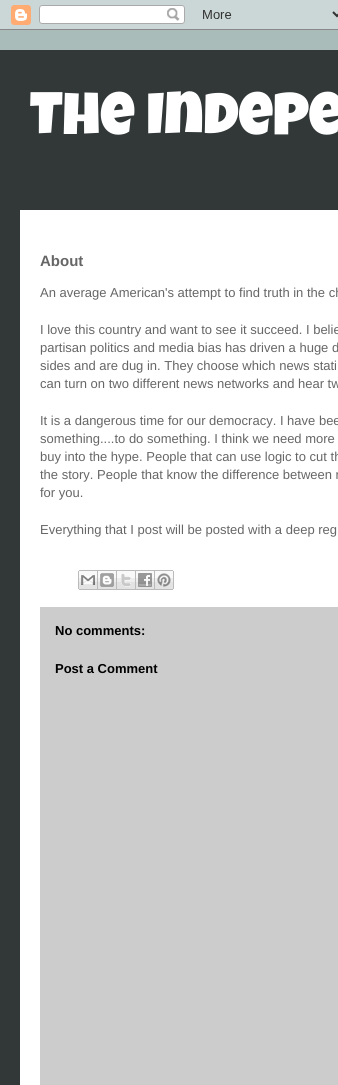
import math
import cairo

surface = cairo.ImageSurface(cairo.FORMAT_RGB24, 338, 1085)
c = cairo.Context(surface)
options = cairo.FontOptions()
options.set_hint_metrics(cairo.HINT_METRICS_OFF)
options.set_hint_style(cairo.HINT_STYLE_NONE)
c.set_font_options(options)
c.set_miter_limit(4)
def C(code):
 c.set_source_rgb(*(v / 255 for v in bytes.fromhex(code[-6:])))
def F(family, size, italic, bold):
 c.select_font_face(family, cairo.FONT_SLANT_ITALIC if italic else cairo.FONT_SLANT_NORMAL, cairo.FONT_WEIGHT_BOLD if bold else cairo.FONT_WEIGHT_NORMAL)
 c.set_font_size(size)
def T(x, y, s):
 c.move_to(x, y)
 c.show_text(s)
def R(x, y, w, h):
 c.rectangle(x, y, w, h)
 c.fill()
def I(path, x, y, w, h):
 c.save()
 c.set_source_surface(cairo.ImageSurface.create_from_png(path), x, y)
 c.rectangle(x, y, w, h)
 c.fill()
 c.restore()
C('a9bcba')
c.paint()
I('1.png',0,0,338,30)
C('323838')
R(0,50,338,1035)
F('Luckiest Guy',60,0,0)
C('ffffff')
T(30,134,'The Indepe')
R(20,210,318,875)
F('Liberation Sans',15,0,1)
C('666666')
T(40,266,'About')
F('Liberation Sans',13,0,0)
T(40,297,'An average American\'s attempt to find truth in the ch')
T(40,334,'I love this country and want to see it succeed. I belie')
T(40,352,'partisan politics and media bias has driven a huge d')
T(40,370,'sides and are dug in. They choose which news stati')
T(40,388,'can turn on two different news networks and hear tw')
T(40,425,'It is a dangerous time for our democracy. I have bee')
T(40,443,'something....to do something. I think we need more')
T(40,461,'buy into the hype. People that can use logic to cut th')
T(40,479,'the story. People that know the difference between r')
T(40,497,'for you.')
T(40,534,'Everything that I post will be posted with a deep reg')
I('2.png',78,570,20,20)
I('3.png',98,570,19,20)
I('4.png',117,570,19,20)
I('5.png',136,570,19,20)
I('6.png',155,570,19,20)
C('cccccc')
R(40,607,298,478)
F('Liberation Sans',13,0,1)
C('000000')
T(55,635,'No comments:')
T(55,673,'Post a Comment')
surface.write_to_png('o.png')
